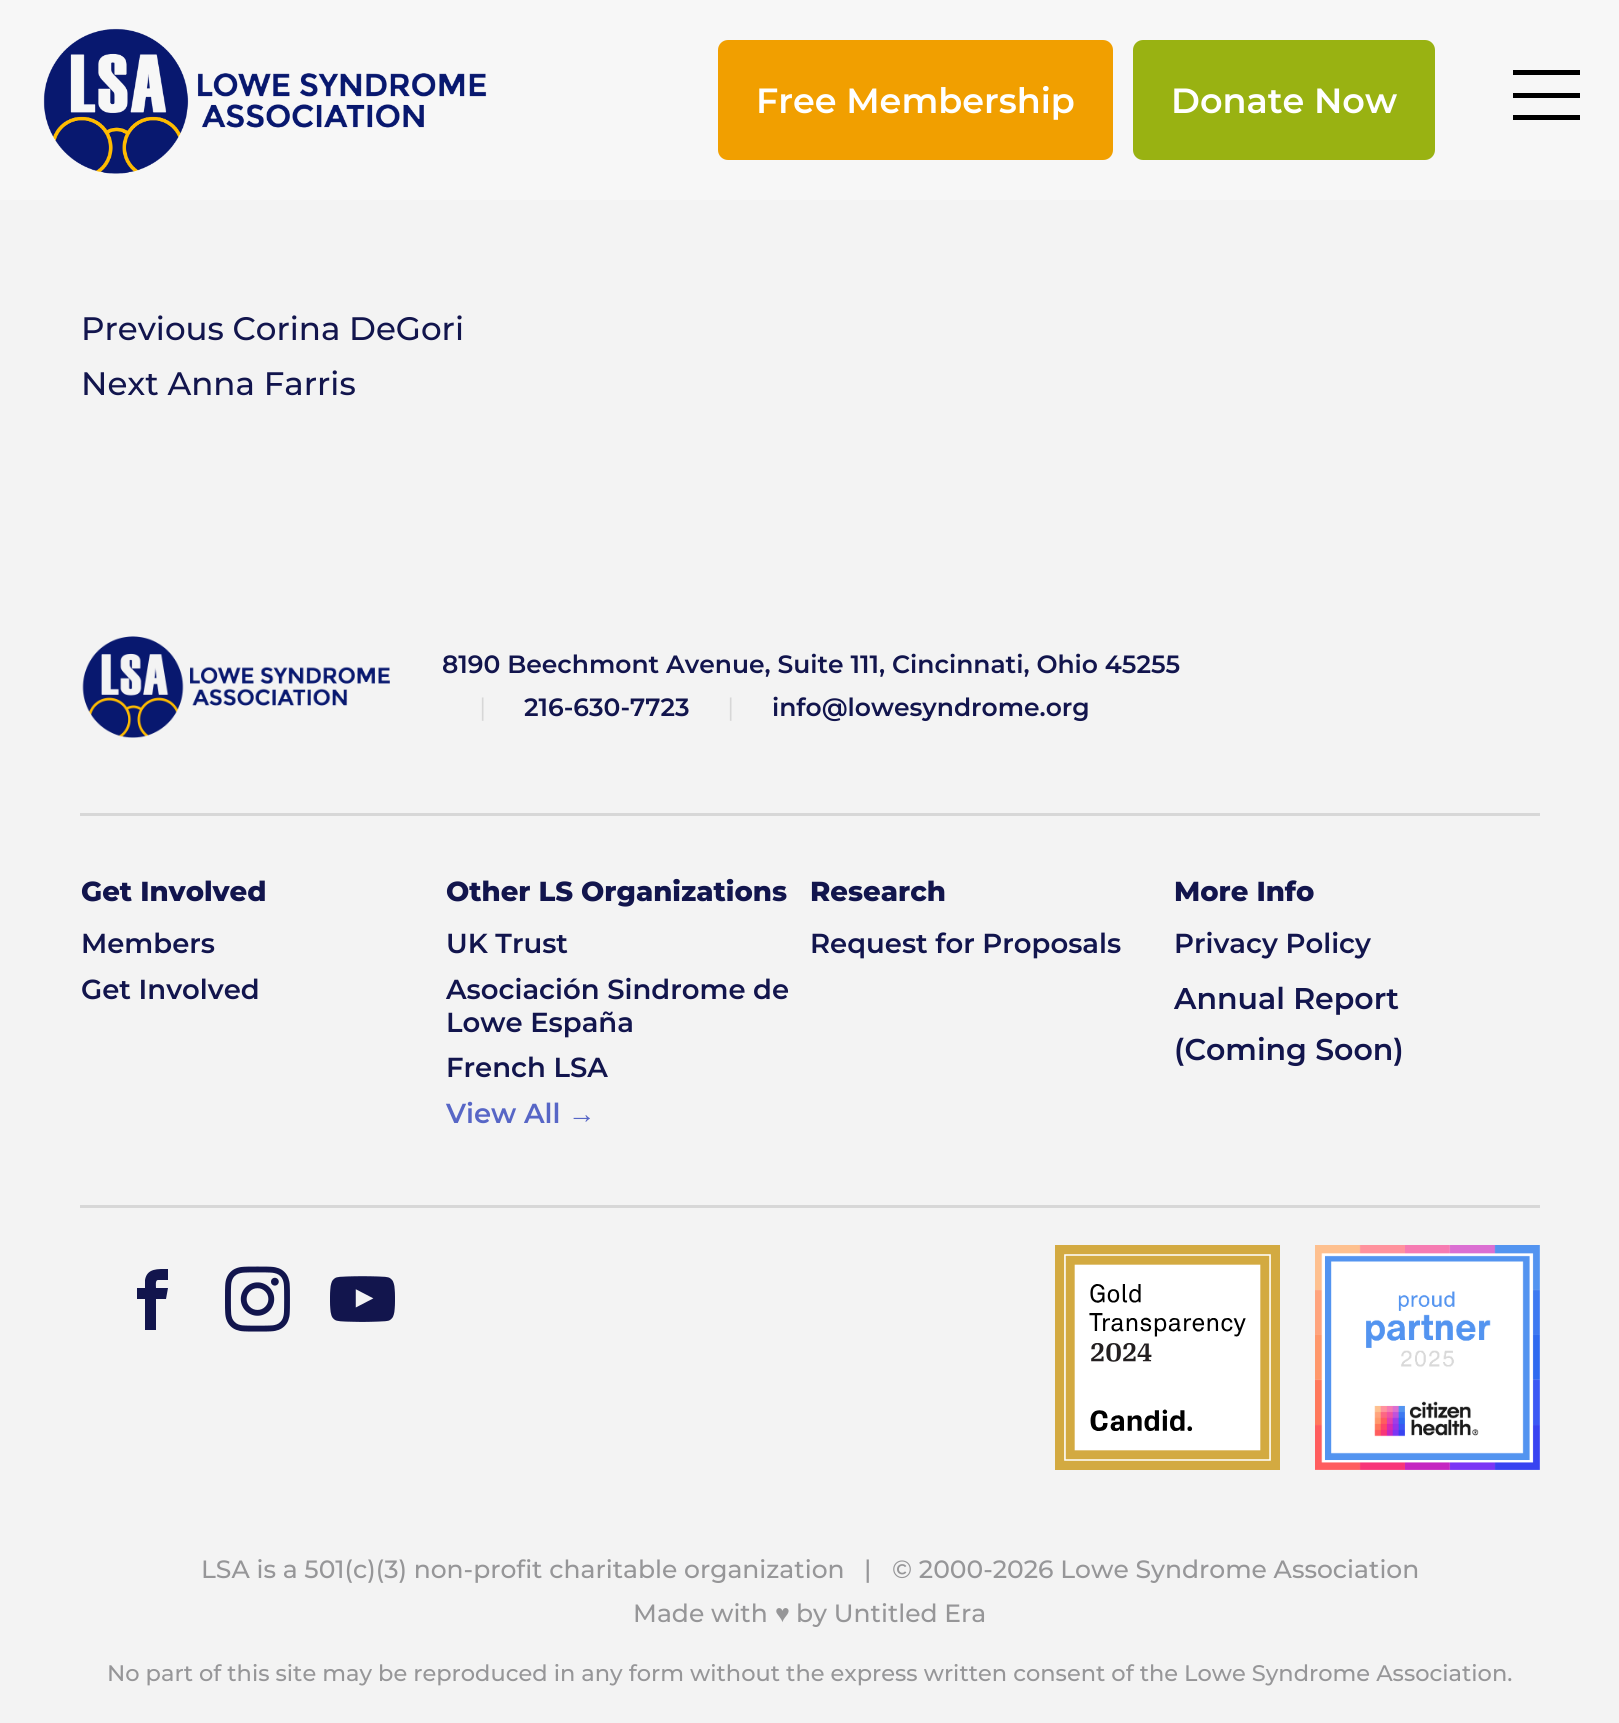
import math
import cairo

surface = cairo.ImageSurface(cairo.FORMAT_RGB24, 1619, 1723)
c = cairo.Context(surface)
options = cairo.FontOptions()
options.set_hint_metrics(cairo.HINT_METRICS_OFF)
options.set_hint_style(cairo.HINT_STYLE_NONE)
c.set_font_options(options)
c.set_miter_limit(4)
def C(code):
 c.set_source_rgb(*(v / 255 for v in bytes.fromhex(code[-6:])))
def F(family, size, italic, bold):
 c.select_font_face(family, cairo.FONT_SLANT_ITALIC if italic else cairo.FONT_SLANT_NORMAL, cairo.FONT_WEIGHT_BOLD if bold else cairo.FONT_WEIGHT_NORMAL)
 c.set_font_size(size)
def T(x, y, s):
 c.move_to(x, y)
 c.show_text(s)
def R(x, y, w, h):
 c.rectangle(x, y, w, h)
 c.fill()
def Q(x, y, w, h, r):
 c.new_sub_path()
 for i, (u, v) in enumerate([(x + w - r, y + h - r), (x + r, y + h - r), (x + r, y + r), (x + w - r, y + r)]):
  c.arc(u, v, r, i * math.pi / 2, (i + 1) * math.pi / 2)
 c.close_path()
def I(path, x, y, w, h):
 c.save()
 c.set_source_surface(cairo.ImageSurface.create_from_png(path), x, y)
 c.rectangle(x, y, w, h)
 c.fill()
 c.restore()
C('f3f3f3')
c.paint()
C('f7f7f7')
R(0,0,1619,200)
I('1.png',43,28,444,146)
C('f19f00')
Q(718,40,395,120,10)
c.fill()
F('Montserrat SemiBold',35,0,0)
C('ffffff')
T(756,113,'Free Membership')
C('99b212')
Q(1133,40,302,120,10)
c.fill()
C('ffffff')
T(1171,113,'Donate Now')
C('000000')
R(1513,93,67,5)
R(1513,70,67,5)
R(1513,115,67,5)
F('Montserrat Medium',32.5,0,0)
C('12154d')
T(81,340,'Previous Corina DeGori')
T(81,395,'Next Anna Farris')
I('2.png',82,636,308,102)
F('Montserrat SemiBold',25,0,0)
T(442,673,'8190 Beechmont Avenue, Suite 111, Cincinnati, Ohio 45255')
F('Montserrat',25,0,0)
C('d7d7d7')
T(479,716,'|')
F('Montserrat SemiBold',25,0,0)
C('12154d')
T(524,716,'216-630-7723')
F('Montserrat',25,0,0)
C('d7d7d7')
T(727,716,'|')
F('Montserrat SemiBold',25,0,0)
C('12154d')
T(772,716,'info@lowesyndrome.org')
C('d7d7d7')
R(80,813,1460,3)
F('Montserrat ExtraBold',27.5,0,0)
C('12154d')
T(81,901,'Get Involved')
F('Montserrat SemiBold',27.5,0,0)
T(81,953,'Members')
T(81,999,'Get Involved')
F('Montserrat ExtraBold',27.5,0,0)
T(446,901,'Other LS Organizations')
F('Montserrat SemiBold',27.5,0,0)
T(446,953,'UK Trust')
T(446,999,'Asociación Sindrome de')
T(446,1032,'Lowe España')
T(446,1077,'French LSA')
C('5766c6')
T(446,1123,'View All')
F('Liberation Sans',27.5,0,1)
T(568,1123,'→')
F('Montserrat ExtraBold',27.5,0,0)
C('12154d')
T(810,901,'Research')
F('Montserrat SemiBold',27.5,0,0)
T(810,953,'Request for Proposals')
F('Montserrat ExtraBold',27.5,0,0)
T(1174,901,'More Info')
F('Montserrat SemiBold',27.5,0,0)
T(1174,953,'Privacy Policy')
F('Montserrat SemiBold',30,0,0)
T(1174,1009,'Annual Report')
T(1174,1060,'(Coming Soon)')
C('d7d7d7')
R(80,1205,1460,3)
C('12154d')
c.new_path()
c.move_to(158,1280)
c.line_to(168,1280)
c.line_to(168,1269)
c.curve_to(158,1269,147,1268,145,1280)
c.line_to(145,1288)
c.line_to(137,1288)
c.line_to(137,1299)
c.line_to(145,1299)
c.line_to(145,1330)
c.line_to(156,1330)
c.line_to(156,1299)
c.line_to(166,1299)
c.line_to(168,1288)
c.line_to(156,1288)
c.curve_to(156,1286,155,1280,158,1280)
c.close_path()
c.fill()
I('3.png',225,1266,65,66)
I('4.png',330,1276,65,46)
I('5.png',1055,1245,225,225)
I('6.png',1315,1245,225,225)
F('Montserrat Medium',25,0,0)
C('969698')
T(201,1578,'LSA is a 501(c)(3) non-profit charitable organization')
T(864,1578,'|')
T(892,1578,'© 2000-2026 Lowe Syndrome Association')
T(633,1622,'Made with')
F('Liberation Serif',25,0,0)
T(775,1622,'♥')
F('Montserrat Medium',25,0,0)
T(796,1622,'by Untitled Era')
F('Montserrat Medium',22.5,0,0)
T(107,1681,'No part of this site may be reproduced in any form without the express written consent of the Lowe Syndrome Association.')
surface.write_to_png('o.png')
